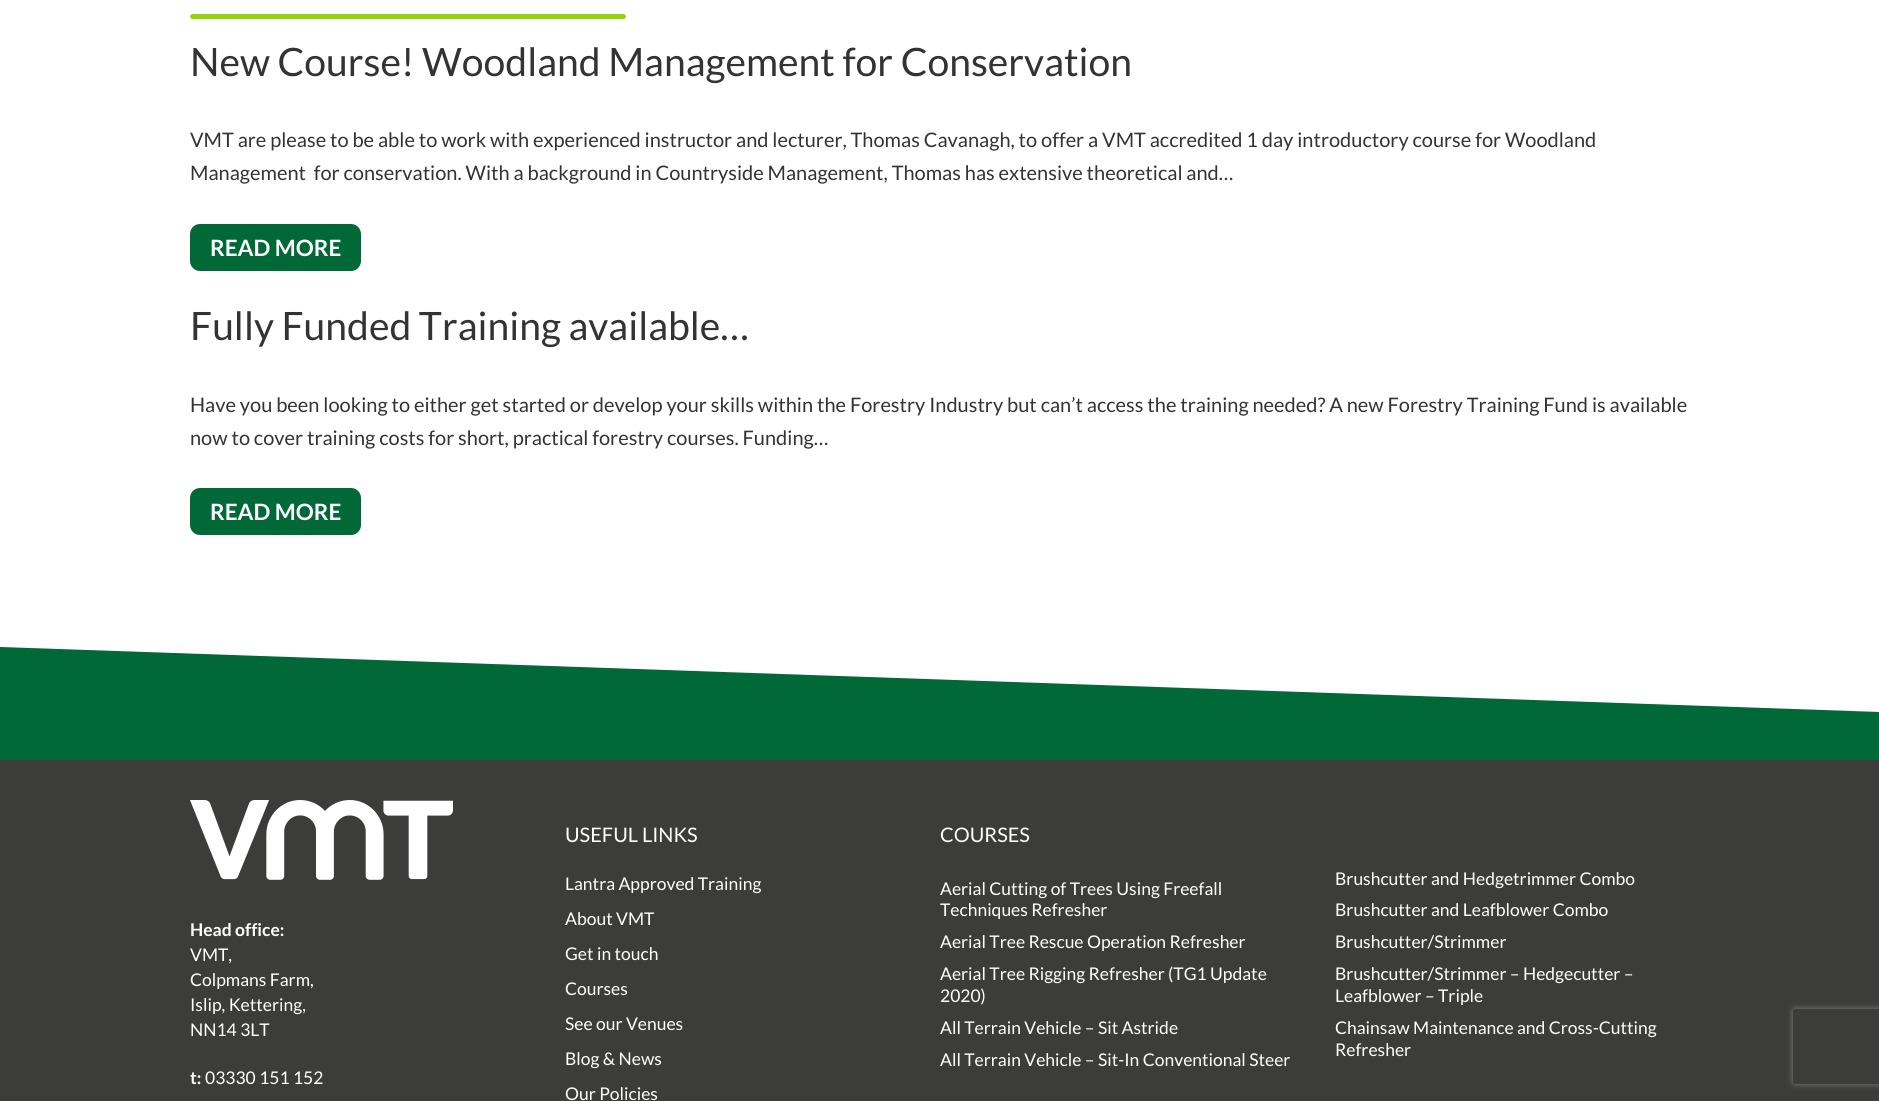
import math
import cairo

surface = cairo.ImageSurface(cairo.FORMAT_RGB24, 1879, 1101)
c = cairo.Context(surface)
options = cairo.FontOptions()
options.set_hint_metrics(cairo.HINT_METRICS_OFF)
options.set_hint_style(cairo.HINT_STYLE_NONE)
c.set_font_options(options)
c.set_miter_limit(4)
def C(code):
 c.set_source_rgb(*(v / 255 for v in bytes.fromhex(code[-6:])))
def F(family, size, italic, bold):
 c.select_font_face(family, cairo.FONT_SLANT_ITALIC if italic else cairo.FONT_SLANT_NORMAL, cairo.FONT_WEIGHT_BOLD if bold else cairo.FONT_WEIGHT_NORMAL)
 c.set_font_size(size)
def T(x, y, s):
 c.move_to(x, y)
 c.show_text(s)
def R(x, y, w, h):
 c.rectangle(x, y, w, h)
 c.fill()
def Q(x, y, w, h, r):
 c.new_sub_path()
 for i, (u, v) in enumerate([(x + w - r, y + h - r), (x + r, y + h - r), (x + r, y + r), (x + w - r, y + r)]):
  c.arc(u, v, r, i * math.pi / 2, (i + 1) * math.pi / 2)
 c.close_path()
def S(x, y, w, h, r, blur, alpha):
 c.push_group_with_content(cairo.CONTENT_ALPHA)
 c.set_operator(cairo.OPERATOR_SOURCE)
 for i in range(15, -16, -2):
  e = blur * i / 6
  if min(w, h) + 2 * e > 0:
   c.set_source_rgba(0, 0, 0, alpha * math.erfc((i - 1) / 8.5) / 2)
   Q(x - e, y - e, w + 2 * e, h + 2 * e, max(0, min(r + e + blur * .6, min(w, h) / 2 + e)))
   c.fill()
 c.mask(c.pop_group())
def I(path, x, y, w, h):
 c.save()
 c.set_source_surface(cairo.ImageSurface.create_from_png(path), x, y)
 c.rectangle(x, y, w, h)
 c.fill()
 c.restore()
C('ffffff')
c.paint()
C('93d50a')
Q(190,14,436,5,2.5)
c.fill()
F('Lato',39.1,0,0)
C('333333')
T(190,76,'New Course! Woodland Management for Conservation')
F('Lato',20,0,0)
T(190,147,'VMT are please to be able to work with experienced instructor and lecturer, Thomas Cavanagh, to offer a VMT accredited 1 day introductory course for Woodland')
T(190,180,'Management  for conservation. With a background in Countryside Management, Thomas has extensive theoretical and…')
C('006937')
Q(190,224,171,47,10)
c.fill()
F('Lato',22.5,0,1)
C('ffffff')
T(210,256,'READ MORE')
F('Lato',39.1,0,0)
C('333333')
T(190,340,'Fully Funded Training available…')
F('Lato',20,0,0)
T(190,412,'Have you been looking to either get started or develop your skills within the Forestry Industry but can’t access the training needed? A new Forestry Training Fund is available')
T(190,445,'now to cover training costs for short, practical forestry courses. Funding…')
C('006937')
Q(190,488,171,47,10)
c.fill()
F('Lato',22.5,0,1)
C('ffffff')
T(210,520,'READ MORE')
C('006937')
c.new_path()
c.move_to(0,647)
c.line_to(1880,712)
c.line_to(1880,912)
c.line_to(0,847)
c.close_path()
c.fill()
C('3c3c3b')
R(0,760,1879,341)
I('1.png',190,800,263,80)
F('Lato',17.5,0,1)
C('ffffff')
T(190,936,'Head office:')
F('Lato',17.5,0,0)
T(190,961,'VMT,')
T(190,986,'Colpmans Farm,')
T(190,1011,'Islip, Kettering,')
T(190,1036,'NN14 3LT')
F('Lato',17.5,0,1)
T(190,1084,'t:')
F('Lato',17.5,0,0)
T(205,1084,'03330 151 152')
F('Lato',20,0,0)
T(565,842,'USEFUL LINKS')
F('Lato',17.5,0,0)
T(565,890,'Lantra Approved Training')
T(565,925,'About VMT')
T(565,960,'Get in touch')
T(565,995,'Courses')
T(565,1030,'See our Venues')
T(565,1065,'Blog & News')
T(565,1100,'Our Policies')
F('Lato',20,0,0)
T(940,842,'COURSES')
F('Lato',17.5,0,0)
T(940,895,'Aerial Cutting of Trees Using Freefall')
T(940,916,'Techniques Refresher')
T(1335,885,'Brushcutter and Hedgetrimmer Combo')
T(1335,916,'Brushcutter and Leafblower Combo')
T(940,948,'Aerial Tree Rescue Operation Refresher')
T(1335,948,'Brushcutter/Strimmer')
T(940,980,'Aerial Tree Rigging Refresher (TG1 Update')
T(940,1002,'2020)')
T(1335,980,'Brushcutter/Strimmer – Hedgecutter –')
T(1335,1002,'Leafblower – Triple')
T(940,1034,'All Terrain Vehicle – Sit Astride')
T(1335,1034,'Chainsaw Maintenance and Cross-Cutting')
T(1335,1056,'Refresher')
T(940,1066,'All Terrain Vehicle – Sit-In Conventional Steer')
c.save()
c.set_fill_rule(cairo.FILL_RULE_EVEN_ODD)
c.new_path()
c.move_to(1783,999)
c.line_to(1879,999)
c.line_to(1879,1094)
c.line_to(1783,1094)
c.close_path()
c.move_to(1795.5,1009)
c.line_to(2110.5,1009)
c.curve_to(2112,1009,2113,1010,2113,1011.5)
c.line_to(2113,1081.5)
c.curve_to(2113,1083,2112,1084,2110.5,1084)
c.line_to(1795.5,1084)
c.curve_to(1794,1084,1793,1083,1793,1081.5)
c.line_to(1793,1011.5)
c.curve_to(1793,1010,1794,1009,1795.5,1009)
c.close_path()
c.clip()
C('808080')
S(1793,1009,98,75,2.5,3,1)
c.restore()
surface.write_to_png('o.png')
